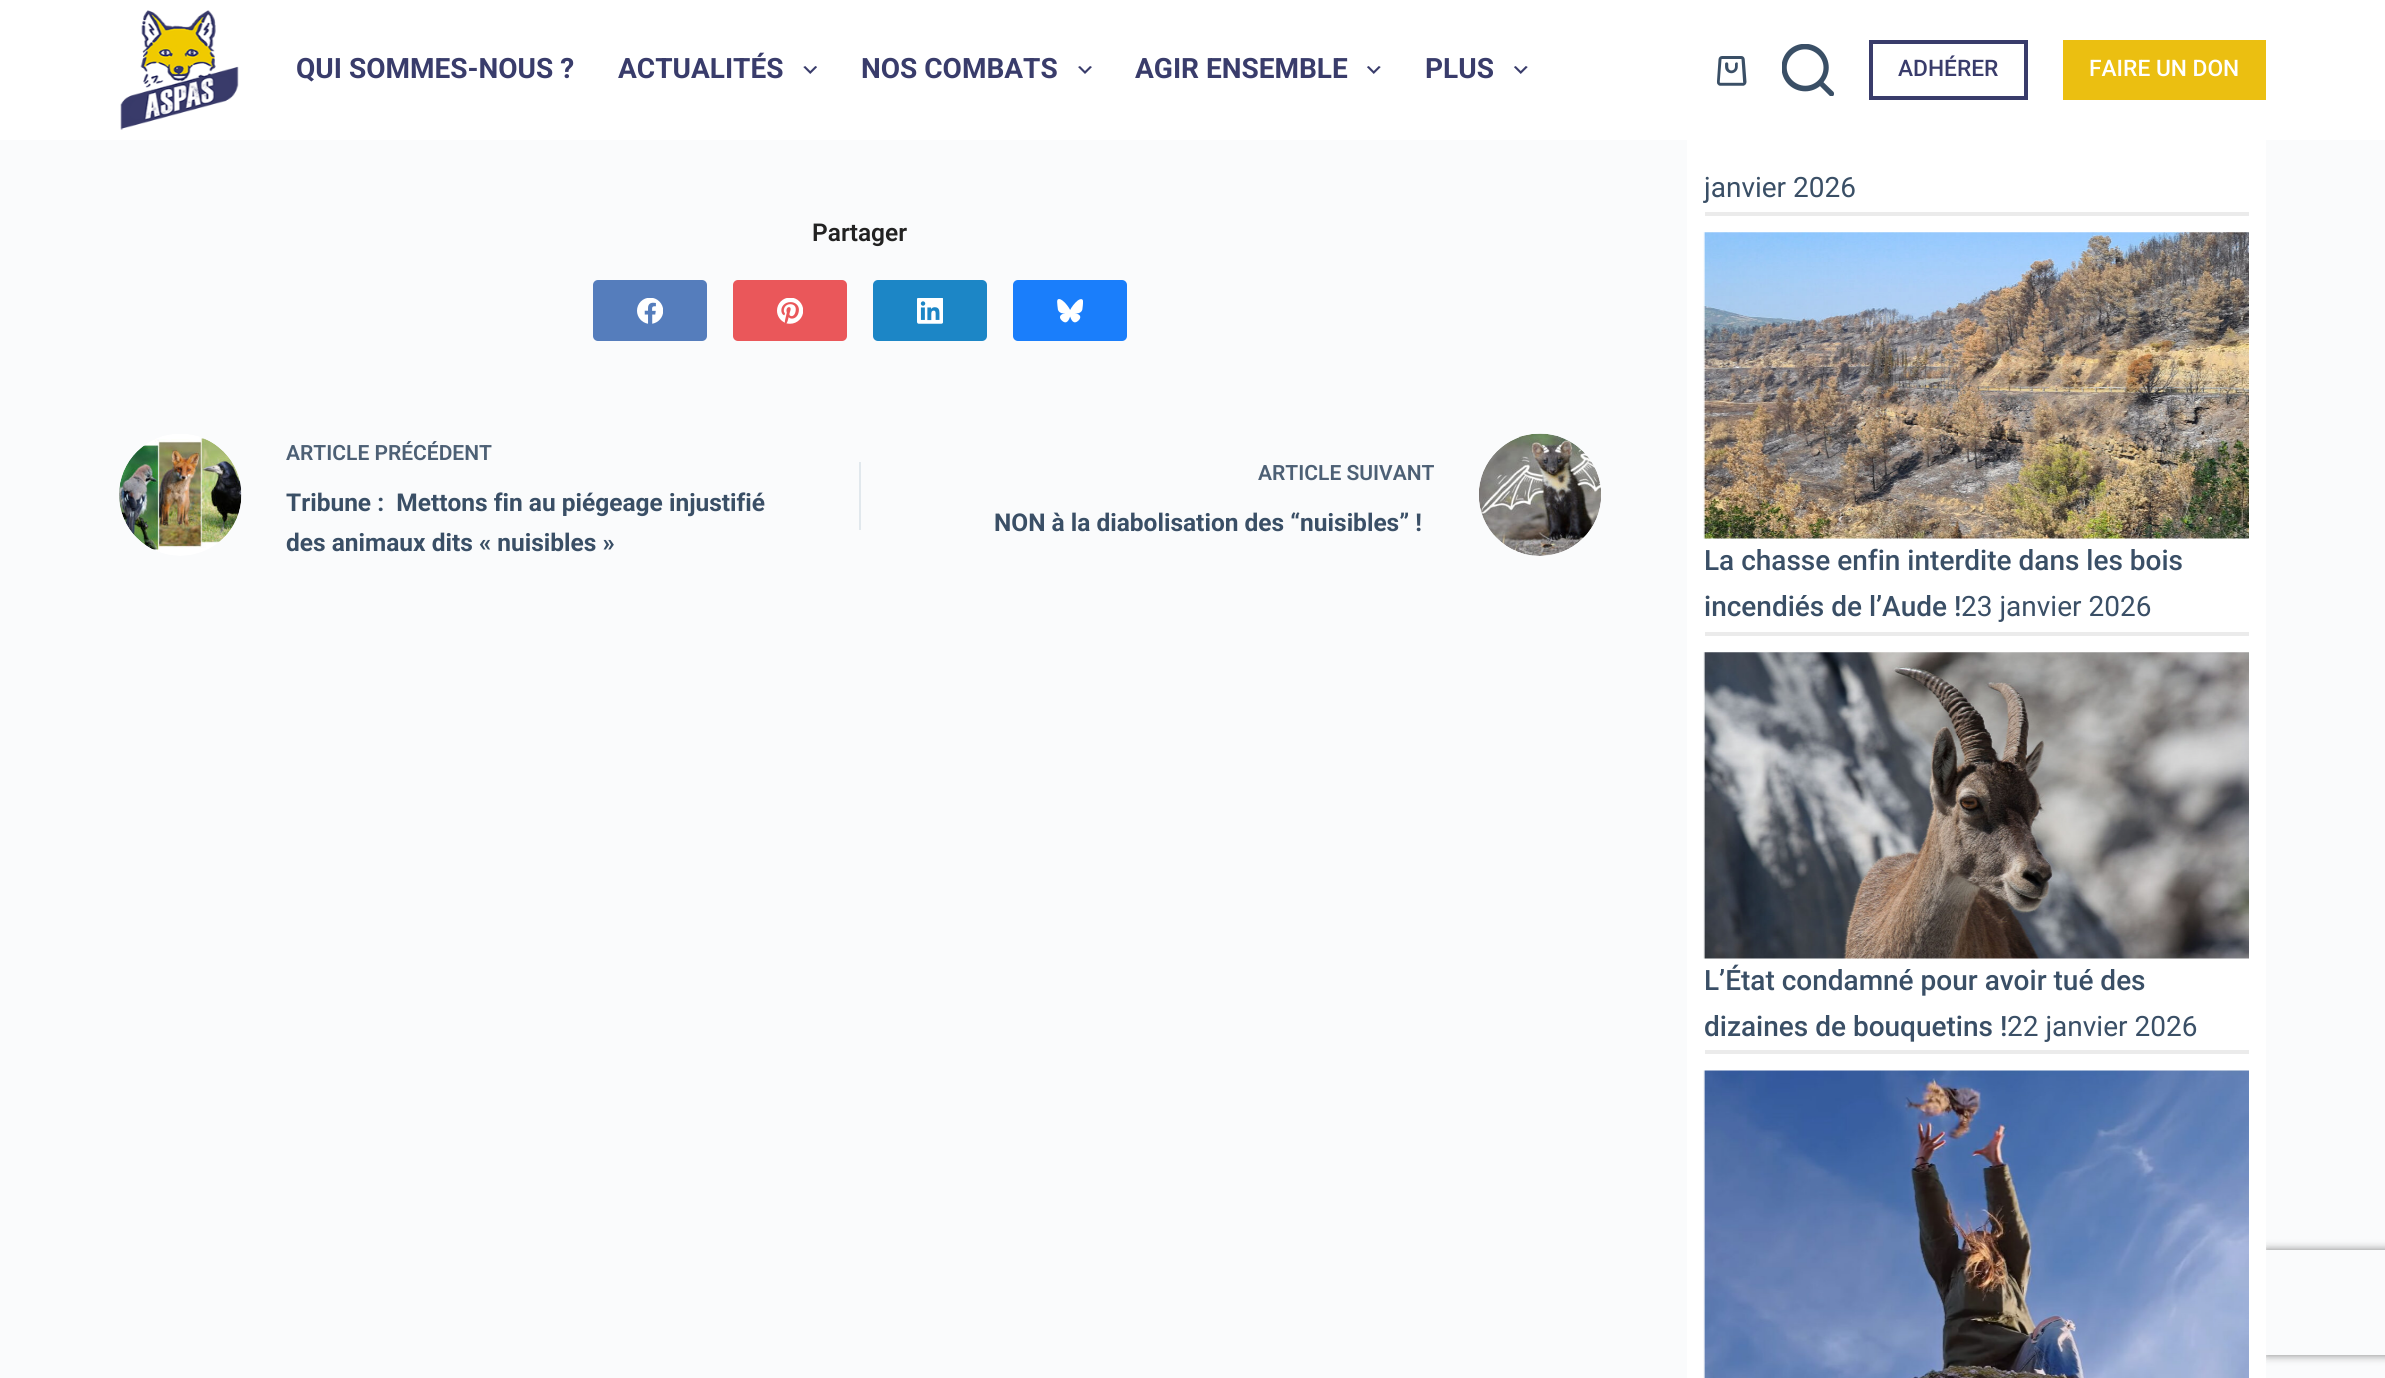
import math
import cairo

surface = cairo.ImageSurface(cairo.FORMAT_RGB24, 2385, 1378)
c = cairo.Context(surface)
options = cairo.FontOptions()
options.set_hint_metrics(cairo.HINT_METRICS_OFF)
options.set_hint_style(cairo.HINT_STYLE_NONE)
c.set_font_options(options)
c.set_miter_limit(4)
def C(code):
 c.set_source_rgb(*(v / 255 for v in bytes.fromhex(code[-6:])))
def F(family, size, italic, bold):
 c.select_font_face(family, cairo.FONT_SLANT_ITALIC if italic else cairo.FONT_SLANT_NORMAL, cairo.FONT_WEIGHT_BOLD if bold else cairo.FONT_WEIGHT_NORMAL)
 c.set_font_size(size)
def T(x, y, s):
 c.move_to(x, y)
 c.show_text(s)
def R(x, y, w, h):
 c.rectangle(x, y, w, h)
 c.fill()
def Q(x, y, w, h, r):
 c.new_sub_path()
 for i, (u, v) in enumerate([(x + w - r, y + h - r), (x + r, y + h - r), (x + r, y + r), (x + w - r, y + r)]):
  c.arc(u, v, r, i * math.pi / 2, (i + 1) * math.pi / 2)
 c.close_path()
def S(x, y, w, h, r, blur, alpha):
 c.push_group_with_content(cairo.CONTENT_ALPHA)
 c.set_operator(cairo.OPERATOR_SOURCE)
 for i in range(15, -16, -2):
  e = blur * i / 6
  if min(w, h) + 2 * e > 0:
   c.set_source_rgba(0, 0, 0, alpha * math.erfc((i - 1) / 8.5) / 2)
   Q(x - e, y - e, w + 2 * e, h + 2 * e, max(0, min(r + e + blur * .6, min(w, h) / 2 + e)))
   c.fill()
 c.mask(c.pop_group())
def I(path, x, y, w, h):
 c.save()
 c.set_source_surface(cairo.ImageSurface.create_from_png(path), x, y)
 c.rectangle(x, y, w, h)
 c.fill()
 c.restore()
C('fafbfc')
c.paint()
C('ffffff')
R(0,0,2385,140)
I('1.png',120,10,119,120)
F('Roboto',28,0,1)
C('393c6b')
T(296,78,'QUI SOMMES-NOUS ?')
T(618,78,'ACTUALITÉS')
I('2.png',803,66,14,8)
T(861,78,'NOS COMBATS')
I('3.png',1078,66,14,8)
T(1135,78,'AGIR ENSEMBLE')
I('4.png',1367,66,14,8)
T(1425,78,'PLUS')
I('4.png',1514,66,14,8)
I('5.png',1717,56,30,30)
I('6.png',1782,44,52,52)
c.rectangle(1871,42,155,56)
c.set_line_width(4)
c.stroke()
F('Roboto Medium',22.75,0,0)
T(1898,76,'ADHÉRER')
C('ebbf11')
R(2063,40,203,60)
C('ffffff')
T(2089,76,'FAIRE UN DON')
F('Roboto SemiBold',24.5,0,0)
C('222222')
T(812,241,'Partager')
C('557dbc')
Q(593,280,114,61,5)
c.fill()
I('7.png',637,298,26,26)
C('ea575a')
Q(733,280,114,61,5)
c.fill()
I('8.png',777,298,26,26)
C('1c86c6')
Q(873,280,114,61,5)
c.fill()
I('9.png',917,298,26,26)
C('1a7efb')
Q(1013,280,114,61,5)
c.fill()
I('10.png',1057,299,26,24)
I('11.png',119,434,123,122)
F('Roboto SemiBold',21,0,0)
C('4d6075')
T(286,460,'ARTICLE PRÉCÉDENT')
F('Roboto',24.5,0,1)
C('3a4f66')
T(286,511,'Tribune :  Mettons fin au piégeage injustifié')
T(286,551,'des animaux dits « nuisibles »')
C('e1e8ed')
R(859,462,2,68)
F('Roboto SemiBold',21,0,0)
C('4d6075')
T(1258,480,'ARTICLE SUIVANT')
F('Roboto',24.5,0,1)
C('3a4f66')
T(994,531,'NON à la diabolisation des “nuisibles” !')
I('12.png',1479,433,122,123)
c.save()
c.set_fill_rule(cairo.FILL_RULE_EVEN_ODD)
c.new_path()
c.move_to(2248,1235)
c.line_to(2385,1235)
c.line_to(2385,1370)
c.line_to(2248,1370)
c.close_path()
c.move_to(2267,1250)
c.line_to(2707,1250)
c.curve_to(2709,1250,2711,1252,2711,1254)
c.line_to(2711,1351)
c.curve_to(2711,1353,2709,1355,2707,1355)
c.line_to(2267,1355)
c.curve_to(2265,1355,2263,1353,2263,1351)
c.line_to(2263,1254)
c.curve_to(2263,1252,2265,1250,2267,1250)
c.close_path()
c.clip()
C('808080')
S(2263,1250,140,105,4,4.5,1)
c.restore()
C('ffffff')
R(1687,140,579,1238)
C('ebebeb')
R(1705,212,544,4)
F('Roboto',28,0,0)
C('3a4f66')
T(1704,197,'janvier 2026')
C('ebebeb')
R(1705,632,544,4)
I('13.png',1703,232,546,307)
F('Roboto Medium',28,0,0)
C('3a4f66')
T(1704,570,'La chasse enfin interdite dans les bois')
T(1704,616,'incendiés de l’Aude !')
F('Roboto',28,0,0)
T(1961,616,'23 janvier 2026')
C('ebebeb')
R(1705,1050,544,4)
I('14.png',1703,652,546,307)
F('Roboto Medium',28,0,0)
C('3a4f66')
T(1704,990,'L’État condamné pour avoir tué des')
T(1704,1036,'dizaines de bouquetins !')
F('Roboto',28,0,0)
T(2007,1036,'22 janvier 2026')
I('15.png',1703,1070,546,308)
surface.write_to_png('o.png')
